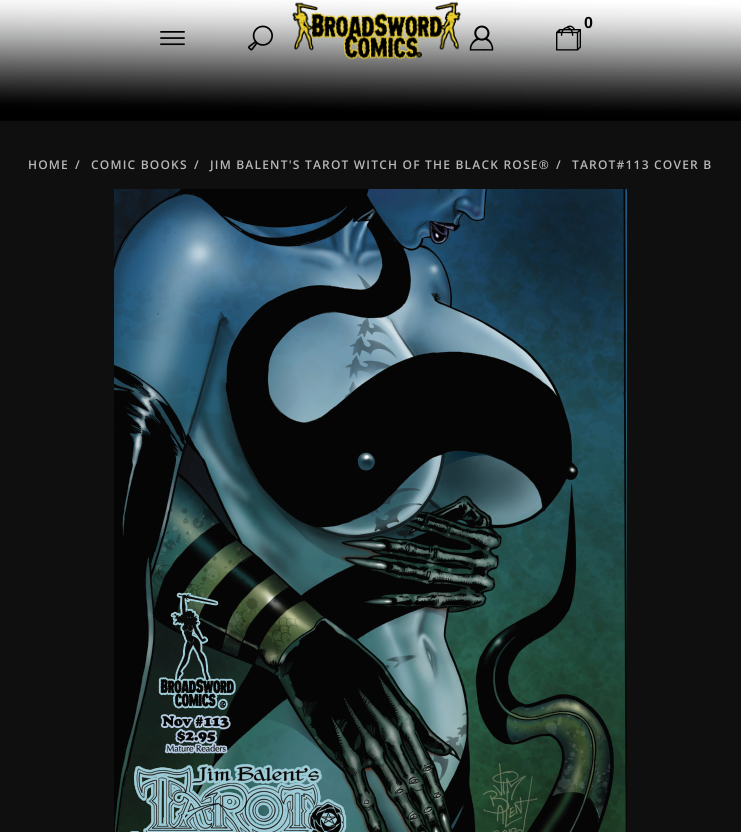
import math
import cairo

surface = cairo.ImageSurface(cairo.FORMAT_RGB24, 741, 832)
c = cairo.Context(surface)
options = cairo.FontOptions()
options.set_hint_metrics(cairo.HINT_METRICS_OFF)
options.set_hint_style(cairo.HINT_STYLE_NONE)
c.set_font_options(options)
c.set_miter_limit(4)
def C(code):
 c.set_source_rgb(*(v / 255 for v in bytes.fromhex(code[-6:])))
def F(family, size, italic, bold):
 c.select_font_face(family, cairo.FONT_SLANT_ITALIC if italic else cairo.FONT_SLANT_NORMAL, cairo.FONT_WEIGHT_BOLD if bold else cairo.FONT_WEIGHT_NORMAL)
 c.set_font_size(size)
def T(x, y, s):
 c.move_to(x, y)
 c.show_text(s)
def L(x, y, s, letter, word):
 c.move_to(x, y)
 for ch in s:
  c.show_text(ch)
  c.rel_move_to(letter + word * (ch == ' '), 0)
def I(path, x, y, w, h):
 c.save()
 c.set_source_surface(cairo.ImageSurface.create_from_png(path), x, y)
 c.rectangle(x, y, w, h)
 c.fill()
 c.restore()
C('0f0f0f')
c.paint()
I('1.png',0,0,741,121)
F('Liberation Sans',16,0,1)
C('000000')
T(584,28,'0')
I('2.png',556,25,25,26)
I('3.png',160,31,25,15)
I('4.png',248,25,25,26)
I('5.png',469,25,25,26)
F('Open Sans SemiBold',12,0,0)
C('b7b7b7')
L(28,169,'HOME',1.2,0)
L(75,169,'/',1.2,0)
L(91,169,'COMIC BOOKS',1.2,0)
L(194,169,'/',1.2,0)
L(210,169,'JIM BALENT\'S TAROT WITCH OF THE BLACK ROSE®',1.2,0)
L(556,169,'/',1.2,0)
L(572,169,'TAROT#113 COVER B',1.2,0)
I('6.png',114,189,513,643)
surface.write_to_png('o.png')
